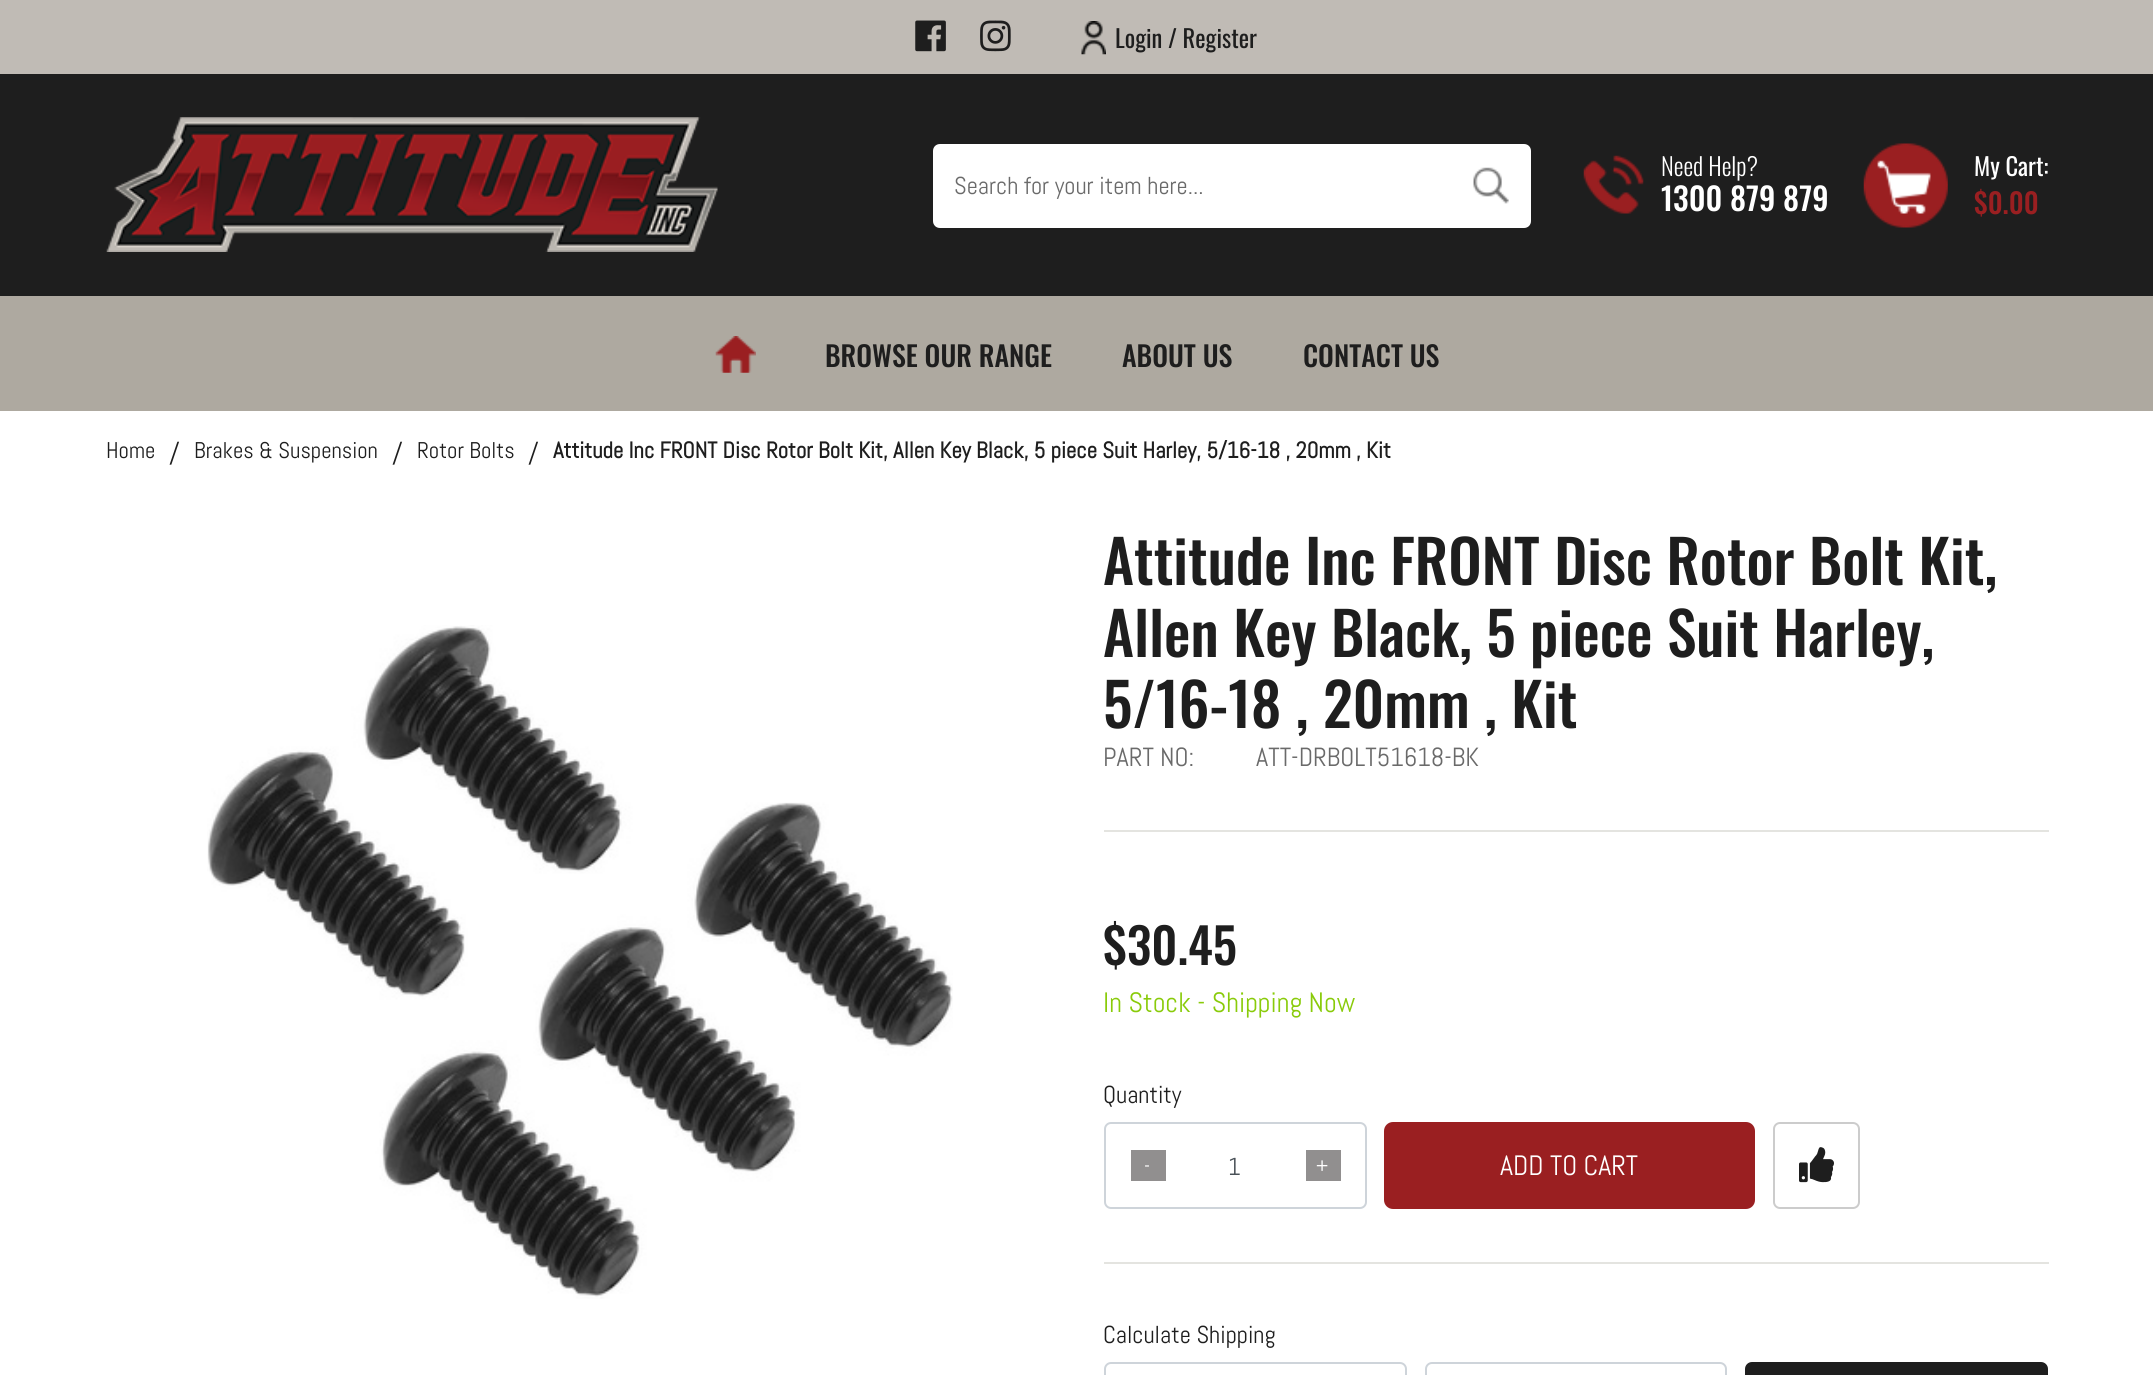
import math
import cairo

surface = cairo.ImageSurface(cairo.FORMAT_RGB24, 2153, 1375)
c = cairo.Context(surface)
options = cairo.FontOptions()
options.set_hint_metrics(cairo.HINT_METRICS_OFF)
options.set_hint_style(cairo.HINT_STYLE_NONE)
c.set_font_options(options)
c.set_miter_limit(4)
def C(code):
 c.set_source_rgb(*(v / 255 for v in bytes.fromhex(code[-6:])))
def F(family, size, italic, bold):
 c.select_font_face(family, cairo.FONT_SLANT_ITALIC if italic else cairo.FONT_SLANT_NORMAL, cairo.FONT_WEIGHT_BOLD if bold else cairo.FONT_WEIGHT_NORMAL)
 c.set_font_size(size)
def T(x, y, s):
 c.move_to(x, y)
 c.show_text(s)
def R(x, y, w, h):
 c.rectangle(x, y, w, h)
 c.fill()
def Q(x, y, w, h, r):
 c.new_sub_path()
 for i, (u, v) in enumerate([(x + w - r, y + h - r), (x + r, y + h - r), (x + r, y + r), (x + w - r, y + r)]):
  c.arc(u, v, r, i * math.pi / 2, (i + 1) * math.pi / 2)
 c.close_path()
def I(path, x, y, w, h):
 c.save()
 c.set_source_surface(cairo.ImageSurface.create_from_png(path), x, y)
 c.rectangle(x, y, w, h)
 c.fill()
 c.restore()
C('ffffff')
c.paint()
C('1e1e1e')
R(0,74,2153,222)
C('c0bbb5')
R(0,0,2153,74)
I('1.png',915,20,31,32)
I('2.png',980,20,31,32)
I('3.png',1081,21,25,34)
F('Oswald',24.5,0,0)
C('1e1e1e')
T(1115,48,'Login / Register')
I('4.png',106,117,612,135)
C('ffffff')
c.new_path()
c.move_to(940,144)
c.line_to(1451,144)
c.line_to(1451,228)
c.line_to(940,228)
c.curve_to(936,228,933,225,933,221)
c.line_to(933,151)
c.curve_to(933,147,936,144,940,144)
c.close_path()
c.fill()
F('Abel',24.5,0,0)
C('6a6a6a')
T(954,194,'Search for your item here...')
C('ffffff')
c.new_path()
c.move_to(1449,144)
c.line_to(1524,144)
c.curve_to(1528,144,1531,147,1531,151)
c.line_to(1531,221)
c.curve_to(1531,225,1528,228,1524,228)
c.line_to(1449,228)
c.close_path()
c.fill()
I('5.png',1473,167,36,37)
I('6.png',1583,155,61,59)
F('Oswald Light',24.5,0,0)
T(1661,176,'Need Help?')
F('Oswald Medium',31.5,0,0)
T(1661,211,'1300 879 879')
I('7.png',1863,143,85,85)
F('Oswald',24.5,0,0)
T(1974,176,'My Cart:')
F('Oswald Medium',28,0,0)
C('9a1f21')
T(1974,214,'$0.00')
C('aea9a0')
R(0,296,2153,115)
I('8.png',715,336,41,37)
C('1e1e1e')
T(825,367,'BROWSE OUR RANGE')
T(1122,367,'ABOUT US')
T(1303,367,'CONTACT US')
F('Abel',22.75,0,0)
T(106,458,'Home')
F('Abel',28,0,0)
T(169,463,'/')
F('Abel',22.75,0,0)
T(194,458,'Brakes & Suspension')
F('Abel',28,0,0)
T(392,463,'/')
F('Abel',22.75,0,0)
T(417,458,'Rotor Bolts')
F('Abel',28,0,0)
T(528,463,'/')
F('Abel',22.75,0,1)
T(553,458,'Attitude Inc FRONT Disc Rotor Bolt Kit, Allen Key Black, 5 piece Suit Harley, 5/16-18 , 20mm , Kit')
I('9.png',207,625,746,674)
F('Oswald Medium',59.5,0,0)
T(1103,585,'Attitude Inc FRONT Disc Rotor Bolt Kit,')
T(1103,657,'Allen Key Black, 5 piece Suit Harley,')
T(1103,728,'5/16-18 , 20mm , Kit')
F('Abel',26.25,0,0)
C('6a6a6a')
T(1103,766,'PART NO:')
T(1256,766,'ATT-DRBOLT51618-BK')
C('e4e4e0')
R(1104,830,945,2)
F('Oswald Medium',49,0,0)
C('1e1e1e')
T(1103,965,'$30.45')
F('Abel',28,0,0)
C('89cb0a')
T(1103,1012,'In Stock - Shipping Now')
F('Abel',24.5,0,0)
C('1e1e1e')
T(1103,1103,'Quantity')
Q(1105,1123,261,85,6)
C('ced4da')
c.stroke()
C('918f8f')
R(1131,1150,35,31)
F('Abel',21,0,0)
C('ffffff')
T(1144,1173,'-')
F('Abel',24.5,0,0)
C('495057')
T(1228,1175,'1')
C('918f8f')
R(1306,1150,35,31)
F('Abel',21,0,0)
C('ffffff')
T(1316,1173,'+')
C('9a1f21')
Q(1385,1123,369,85,8)
c.fill_preserve()
c.stroke()
F('Abel',28,0,0)
C('ffffff')
T(1500,1175,'ADD TO CART')
Q(1774,1123,85,85,6)
C('cccccc')
c.stroke()
I('10.png',1799,1147,35,36)
C('e4e4e0')
R(1104,1262,945,2)
F('Abel',24.5,0,0)
C('1e1e1e')
T(1103,1343,'Calculate Shipping')
Q(1105,1363,301,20,6)
C('ced4da')
c.stroke()
Q(1426,1363,300,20,6)
c.stroke()
C('1e1e1e')
Q(1746,1363,301,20,6)
c.fill_preserve()
c.stroke()
surface.write_to_png('o.png')
